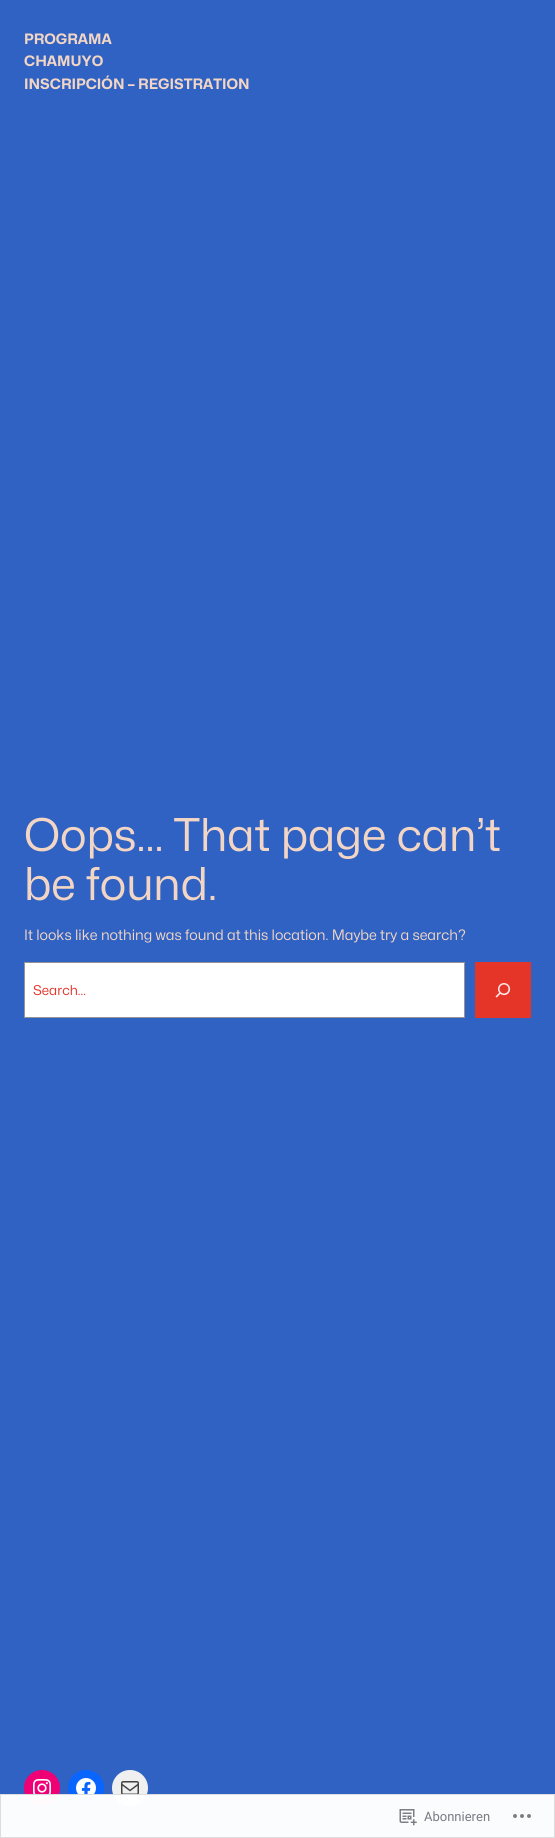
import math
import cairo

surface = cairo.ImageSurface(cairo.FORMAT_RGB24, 555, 1838)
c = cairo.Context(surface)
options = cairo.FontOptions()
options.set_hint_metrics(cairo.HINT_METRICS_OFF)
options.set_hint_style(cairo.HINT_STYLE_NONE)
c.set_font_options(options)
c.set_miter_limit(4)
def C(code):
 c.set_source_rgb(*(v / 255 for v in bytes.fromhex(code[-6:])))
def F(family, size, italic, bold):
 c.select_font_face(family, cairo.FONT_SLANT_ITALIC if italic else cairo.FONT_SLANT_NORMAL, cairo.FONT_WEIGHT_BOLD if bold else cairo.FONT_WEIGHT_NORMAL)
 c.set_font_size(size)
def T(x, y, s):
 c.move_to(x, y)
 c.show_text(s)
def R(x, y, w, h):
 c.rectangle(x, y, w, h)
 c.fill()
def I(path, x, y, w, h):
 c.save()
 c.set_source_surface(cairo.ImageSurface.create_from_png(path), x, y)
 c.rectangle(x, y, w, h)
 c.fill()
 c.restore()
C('2f62c2')
c.paint()
F('Mona Sans',14.4,0,1)
C('f2d5c4')
T(24,44,'PROGRAMA')
T(24,66,'CHAMUYO')
T(24,89,'INSCRIPCIÓN – REGISTRATION')
F('Mona Sans',45.25,0,0)
T(24,851,'Oops… That page can’t')
T(24,900,'be found.')
F('Mona Sans',14.4,0,0)
T(24,940,'It looks like nothing was found at this location. Maybe try a search?')
C('ffffff')
c.rectangle(24.5,962.5,440,55)
c.fill_preserve()
C('949494')
c.set_line_width(1)
c.stroke()
F('Mona Sans',13.5,0,0)
C('e53529')
T(33,995,'Search...')
R(475,962,56,56)
I('1.png',495,983,16,15)
C('f00075')
c.arc(42,1788,18,0,2 * math.pi)
c.fill()
I('2.png',33,1779,18,18)
C('0866ff')
c.arc(86,1788,18,0,2 * math.pi)
c.fill()
I('3.png',76,1778,20,20)
C('f0f0f0')
c.arc(130,1788,18,0,2 * math.pi)
c.fill()
I('4.png',121,1781,18,14)
c.set_source_rgba(1,1,1,0.98)
R(0,1794,555,44)
c.rectangle(.5,1794.5,554,43)
c.set_source_rgba(0.863,0.863,0.871,0.98)
c.stroke()
I('5.png',399,1809,18,17)
F('Roboto',13,0,0)
C('777b83')
T(424,1821,'Abonnieren')
I('6.png',513,1814,18,4)
surface.write_to_png('o.png')
